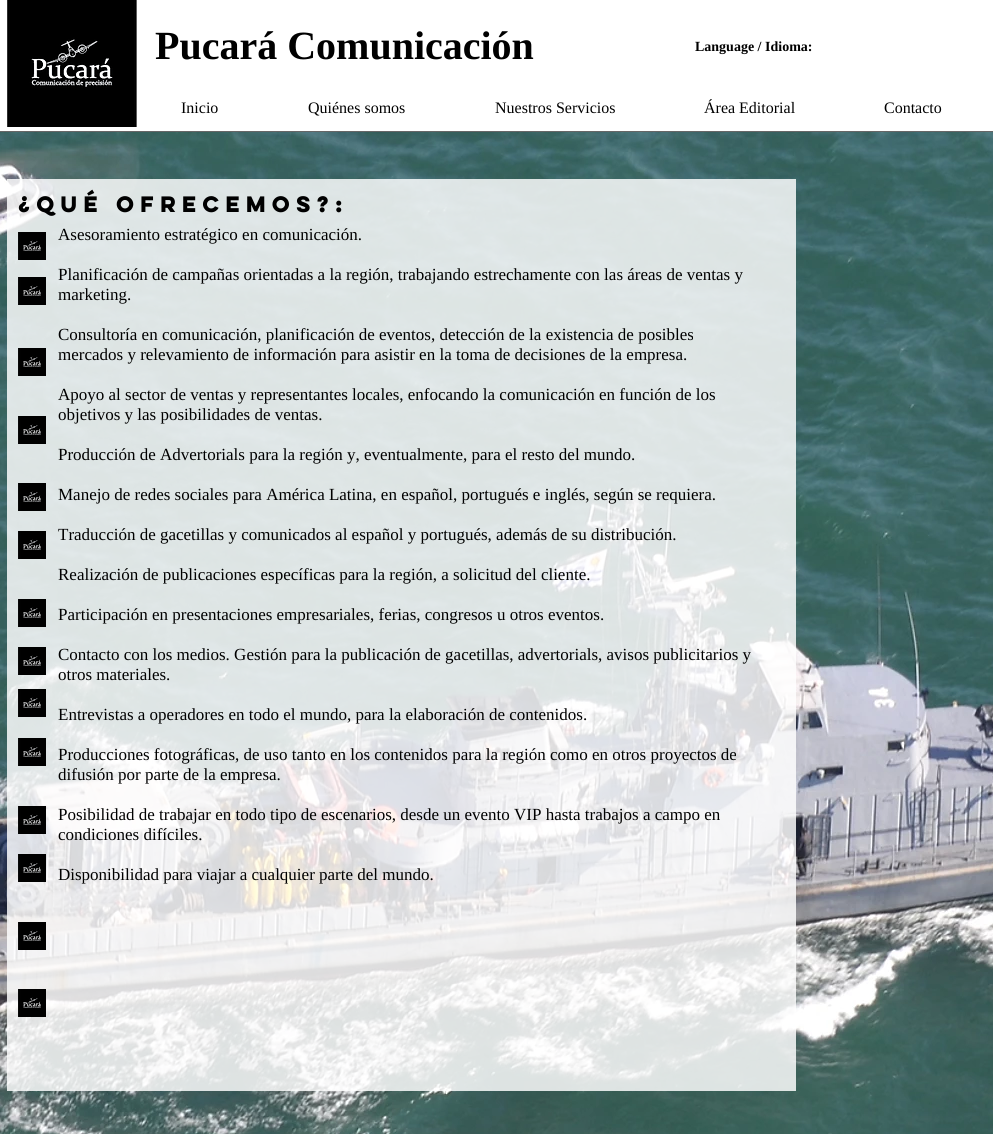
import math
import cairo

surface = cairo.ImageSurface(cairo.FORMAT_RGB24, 993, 1134)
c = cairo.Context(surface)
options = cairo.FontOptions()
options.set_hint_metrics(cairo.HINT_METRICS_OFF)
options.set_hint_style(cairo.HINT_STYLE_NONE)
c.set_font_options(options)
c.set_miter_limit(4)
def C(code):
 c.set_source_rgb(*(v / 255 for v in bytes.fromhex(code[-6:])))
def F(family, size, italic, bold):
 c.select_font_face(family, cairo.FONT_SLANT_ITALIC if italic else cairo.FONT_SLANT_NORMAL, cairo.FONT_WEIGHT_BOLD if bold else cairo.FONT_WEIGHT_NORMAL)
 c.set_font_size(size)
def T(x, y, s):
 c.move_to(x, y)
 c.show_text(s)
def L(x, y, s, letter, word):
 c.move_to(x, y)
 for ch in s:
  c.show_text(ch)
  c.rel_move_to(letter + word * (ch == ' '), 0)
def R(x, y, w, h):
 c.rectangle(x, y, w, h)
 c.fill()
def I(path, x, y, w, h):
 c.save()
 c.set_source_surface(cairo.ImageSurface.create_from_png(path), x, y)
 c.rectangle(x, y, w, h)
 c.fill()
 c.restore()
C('ffffff')
c.paint()
I('1.png',7,0,130,127)
F('Liberation Serif',40,0,1)
C('000000')
T(155,59,'Pucará Comunicación')
F('Liberation Serif',14,0,1)
T(695,51,'Language / Idioma:')
F('Liberation Serif',16,0,0)
T(181,113,'Inicio')
T(308,113,'Quiénes somos')
T(495,113,'Nuestros Servicios')
T(704,113,'Área Editorial')
T(884,113,'Contacto')
C('666666')
R(0,131,993,1)
I('2.png',0,132,993,1002)
c.set_source_rgba(1,1,1,0.83)
R(7,179,789,912)
F('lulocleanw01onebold',20,0,1)
C('000000')
L(18,212,'¿Qué ofrecemos?:',2,0)
I('3.png',18,232,28,28)
F('Liberation Serif',17,0,0)
T(58,240,'Asesoramiento estratégico en comunicación.')
T(58,280,'Planificación de campañas orientadas a la región, trabajando estrechamente con las áreas de ventas y')
T(58,300,'marketing.')
T(58,340,'Consultoría en comunicación, planificación de eventos, detección de la existencia de posibles')
T(58,360,'mercados y relevamiento de información para asistir en la toma de decisiones de la empresa.')
T(58,400,'Apoyo al sector de ventas y representantes locales, enfocando la comunicación en función de los')
T(58,420,'objetivos y las posibilidades de ventas.')
T(58,460,'Producción de Advertorials para la región y, eventualmente, para el resto del mundo.')
T(58,500,'Manejo de redes sociales para América Latina, en español, portugués e inglés, según se requiera.')
T(58,540,'Traducción de gacetillas y comunicados al español y portugués, además de su distribución.')
T(58,580,'Realización de publicaciones específicas para la región, a solicitud del cliente.')
T(58,620,'Participación en presentaciones empresariales, ferias, congresos u otros eventos.')
T(58,660,'Contacto con los medios. Gestión para la publicación de gacetillas, advertorials, avisos publicitarios y')
T(58,680,'otros materiales.')
T(58,720,'Entrevistas a operadores en todo el mundo, para la elaboración de contenidos.')
T(58,760,'Producciones fotográficas, de uso tanto en los contenidos para la región como en otros proyectos de')
T(58,780,'difusión por parte de la empresa.')
T(58,820,'Posibilidad de trabajar en todo tipo de escenarios, desde un evento VIP hasta trabajos a campo en')
T(58,840,'condiciones difíciles.')
T(58,880,'Disponibilidad para viajar a cualquier parte del mundo.')
I('3.png',18,277,28,28)
I('3.png',18,348,28,28)
I('3.png',18,416,28,28)
I('3.png',18,483,28,28)
I('3.png',18,531,28,28)
I('3.png',18,599,28,28)
I('3.png',18,647,28,28)
I('3.png',18,689,28,28)
I('3.png',18,738,28,28)
I('4.png',18,806,28,28)
I('3.png',18,854,28,28)
I('5.png',18,922,28,28)
I('6.png',18,989,28,28)
surface.write_to_png('o.png')
